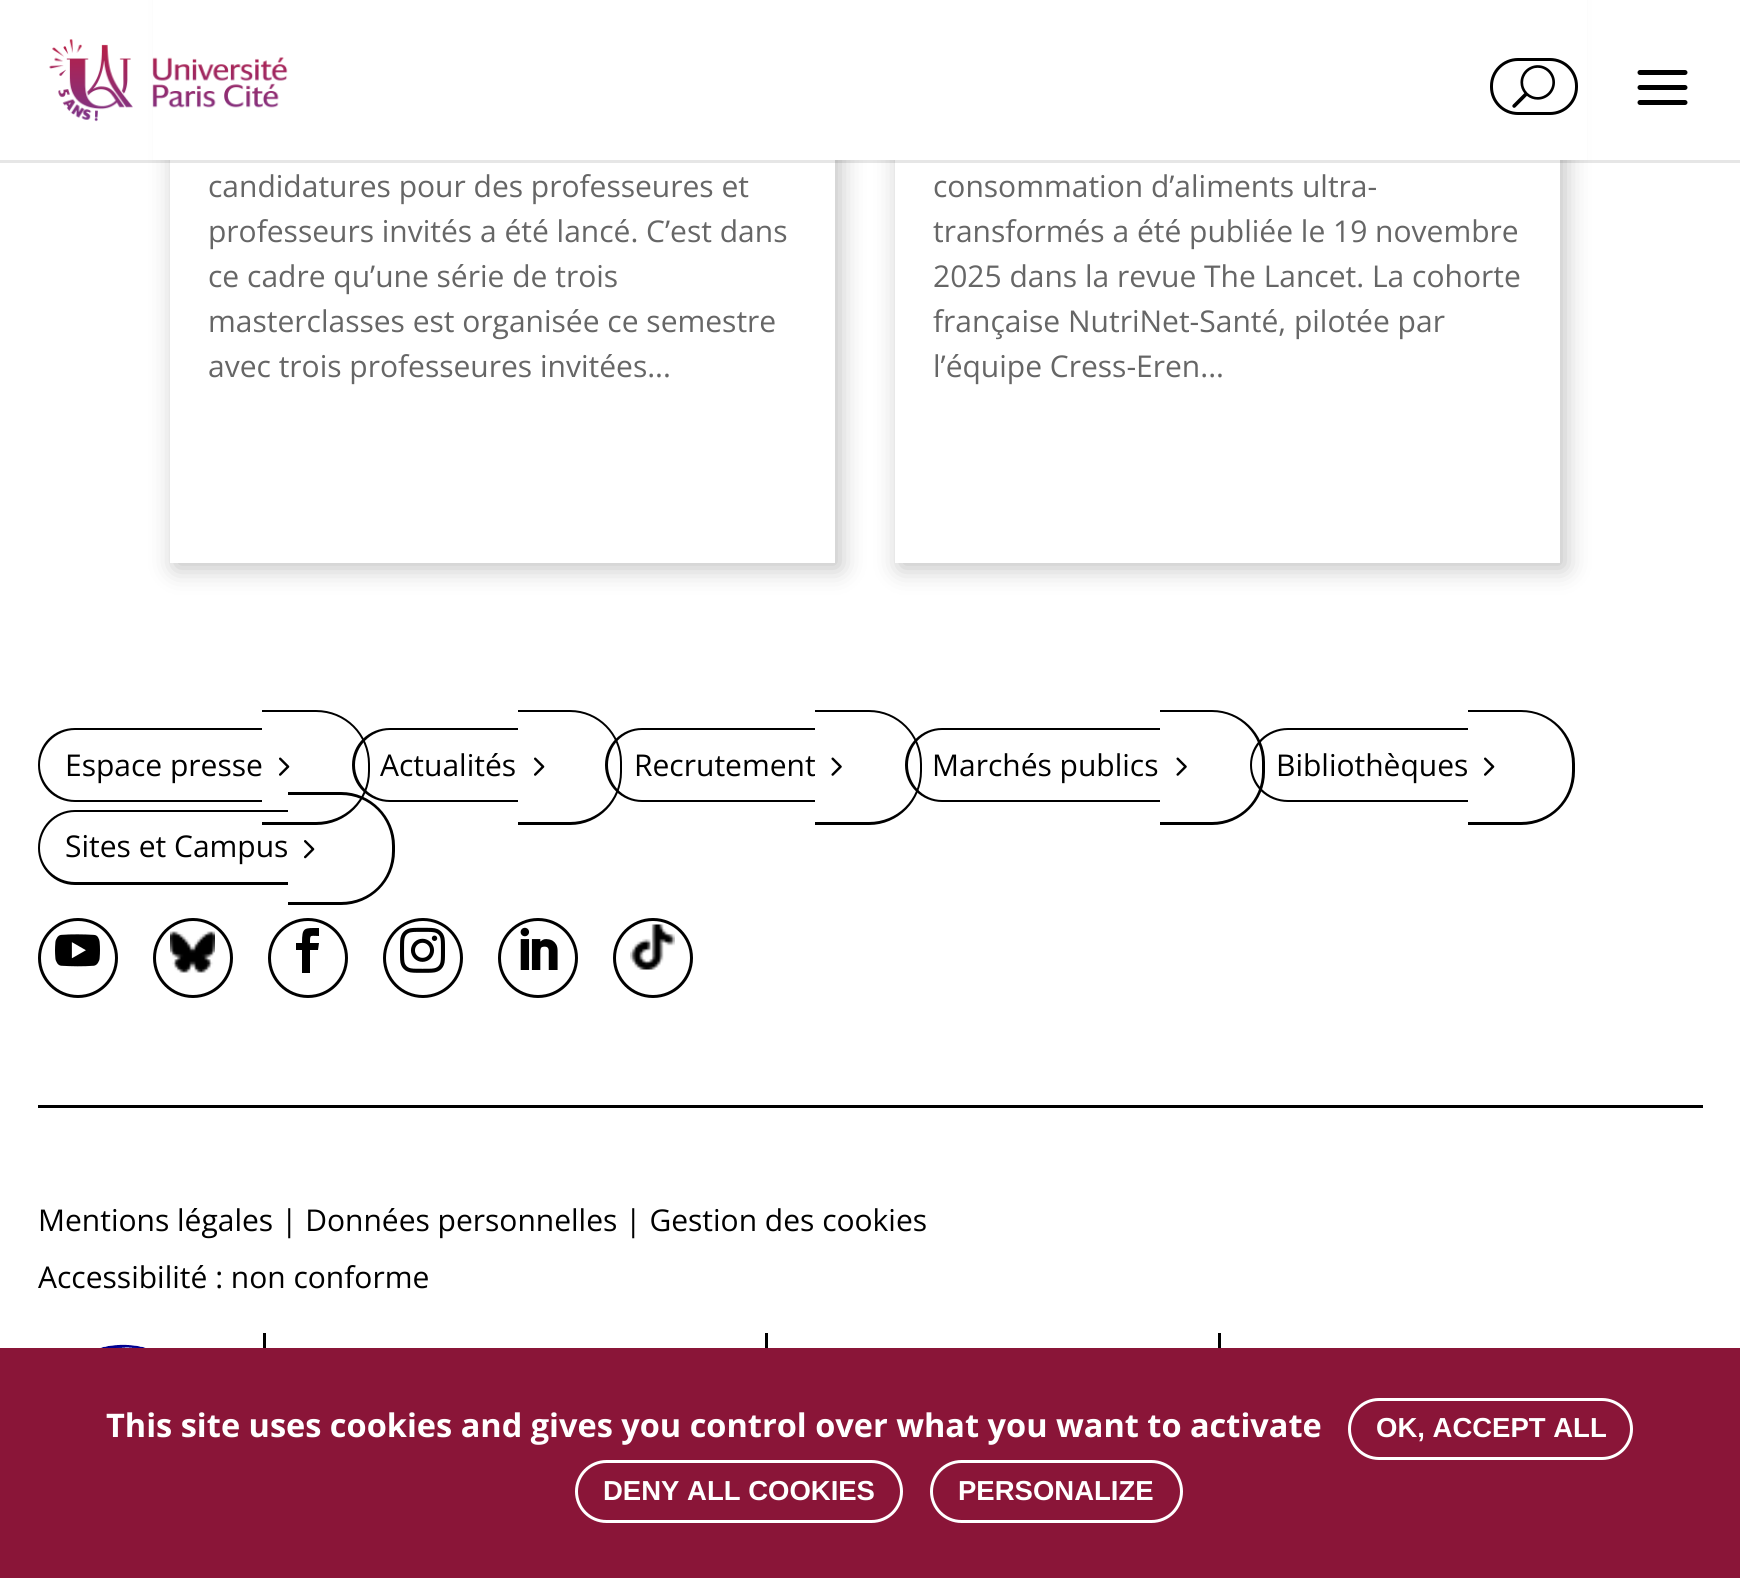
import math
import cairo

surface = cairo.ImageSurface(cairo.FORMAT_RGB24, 1740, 1578)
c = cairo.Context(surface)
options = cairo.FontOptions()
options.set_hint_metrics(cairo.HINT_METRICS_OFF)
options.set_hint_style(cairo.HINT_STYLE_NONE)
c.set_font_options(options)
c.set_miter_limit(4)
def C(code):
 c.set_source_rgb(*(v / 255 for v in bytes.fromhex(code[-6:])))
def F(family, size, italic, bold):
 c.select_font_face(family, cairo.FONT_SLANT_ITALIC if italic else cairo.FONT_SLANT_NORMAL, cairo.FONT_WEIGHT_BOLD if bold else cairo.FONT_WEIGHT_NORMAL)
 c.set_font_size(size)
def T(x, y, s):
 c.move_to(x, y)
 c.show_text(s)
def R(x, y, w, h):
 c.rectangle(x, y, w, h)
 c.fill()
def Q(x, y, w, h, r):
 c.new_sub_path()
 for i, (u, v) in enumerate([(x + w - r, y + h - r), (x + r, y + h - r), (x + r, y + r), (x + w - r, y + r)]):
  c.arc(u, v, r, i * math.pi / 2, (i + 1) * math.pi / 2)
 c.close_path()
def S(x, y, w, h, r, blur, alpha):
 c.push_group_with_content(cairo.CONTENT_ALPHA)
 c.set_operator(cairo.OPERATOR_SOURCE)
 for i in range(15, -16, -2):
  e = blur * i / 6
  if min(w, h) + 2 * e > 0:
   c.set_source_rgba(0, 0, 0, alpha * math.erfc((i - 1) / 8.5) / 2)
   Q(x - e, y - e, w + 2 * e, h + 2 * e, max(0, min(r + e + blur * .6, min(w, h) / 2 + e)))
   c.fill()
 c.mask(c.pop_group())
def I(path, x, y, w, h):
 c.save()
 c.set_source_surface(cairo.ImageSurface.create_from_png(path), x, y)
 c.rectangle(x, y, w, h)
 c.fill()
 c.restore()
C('ffffff')
c.paint()
c.save()
c.set_fill_rule(cairo.FILL_RULE_EVEN_ODD)
c.new_path()
c.move_to(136,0)
c.line_to(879,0)
c.line_to(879,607)
c.line_to(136,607)
c.close_path()
c.move_to(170,-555)
c.line_to(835,-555)
c.line_to(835,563)
c.line_to(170,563)
c.close_path()
c.clip()
C('c0c0c0')
S(175,-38,665,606,0,12.5,1)
c.restore()
c.save()
c.set_fill_rule(cairo.FILL_RULE_EVEN_ODD)
c.new_path()
c.move_to(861,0)
c.line_to(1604,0)
c.line_to(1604,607)
c.line_to(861,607)
c.close_path()
c.move_to(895,-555)
c.line_to(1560,-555)
c.line_to(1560,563)
c.line_to(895,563)
c.close_path()
c.clip()
C('c0c0c0')
S(900,-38,665,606,0,12.5,1)
c.restore()
c.set_source_rgba(0,0,0,0.1)
R(0,160,1740,3)
C('ffffff')
R(153,0,1434,160)
I('1.png',49,39,239,83)
Q(1491.5,59.5,85,54,26.5)
C('000000')
c.set_line_width(3)
c.stroke()
I('2.png',1512,65,43,43)
I('3.png',1637,70,51,35)
F('Open Sans',30,0,0)
C('666666')
T(208,197,'candidatures pour des professeures et')
T(208,242,'professeurs invités a été lancé. C’est dans')
T(208,287,'ce cadre qu’une série de trois')
T(208,332,'masterclasses est organisée ce semestre')
T(208,377,'avec trois professeures invitées...')
T(933,197,'consommation d’aliments ultra-')
T(933,242,'transformés a été publiée le 19 novembre')
T(933,287,'2025 dans la revue The Lancet. La cohorte')
T(933,332,'française NutriNet-Santé, pilotée par')
T(933,377,'l’équipe Cress-Eren...')
C('000000')
R(38,1105,1665,3)
c.set_fill_rule(cairo.FILL_RULE_EVEN_ODD)
c.new_path()
c.move_to(75,728)
c.line_to(262,728)
c.line_to(262,802)
c.line_to(75,802)
c.curve_to(54,802,38,786,38,765)
c.curve_to(38,744,54,728,75,728)
c.close_path()
c.move_to(75,730)
c.line_to(262,730)
c.line_to(262,800)
c.line_to(75,800)
c.curve_to(56,800,40,784,40,765)
c.curve_to(40,746,56,730,75,730)
c.close_path()
c.fill()
c.new_path()
c.move_to(262,710)
c.line_to(316,710)
c.curve_to(346,710,370,734,370,764)
c.line_to(370,771)
c.curve_to(370,801,346,825,316,825)
c.line_to(262,825)
c.close_path()
c.move_to(262,712)
c.line_to(316,712)
c.curve_to(345,712,368,735,368,764)
c.line_to(368,771)
c.curve_to(368,800,345,822,316,822)
c.line_to(262,822)
c.close_path()
c.fill()
T(65,776,'Espace presse')
I('4.png',279,757,11,19)
c.new_path()
c.move_to(390,728)
c.line_to(518,728)
c.line_to(518,802)
c.line_to(390,802)
c.curve_to(369,802,352,786,352,765)
c.curve_to(352,744,369,728,390,728)
c.close_path()
c.move_to(390,730)
c.line_to(518,730)
c.line_to(518,800)
c.line_to(390,800)
c.curve_to(371,800,355,784,355,765)
c.curve_to(355,746,371,730,390,730)
c.close_path()
c.fill()
c.new_path()
c.move_to(518,710)
c.line_to(570,710)
c.curve_to(599,710,622,734,622,762)
c.line_to(622,772)
c.curve_to(622,801,599,825,570,825)
c.line_to(518,825)
c.close_path()
c.move_to(518,712)
c.line_to(570,712)
c.curve_to(598,712,620,735,620,762)
c.line_to(620,772)
c.curve_to(620,800,598,822,570,822)
c.line_to(518,822)
c.close_path()
c.fill()
T(380,776,'Actualités')
I('4.png',534,757,11,19)
c.new_path()
c.move_to(642,728)
c.line_to(815,728)
c.line_to(815,802)
c.line_to(642,802)
c.curve_to(622,802,605,786,605,765)
c.curve_to(605,744,622,728,642,728)
c.close_path()
c.move_to(642,730)
c.line_to(815,730)
c.line_to(815,800)
c.line_to(642,800)
c.curve_to(623,800,608,784,608,765)
c.curve_to(608,746,623,730,642,730)
c.close_path()
c.fill()
c.new_path()
c.move_to(815,710)
c.line_to(869,710)
c.curve_to(898,710,922,734,922,764)
c.line_to(922,771)
c.curve_to(922,801,898,825,869,825)
c.line_to(815,825)
c.close_path()
c.move_to(815,712)
c.line_to(869,712)
c.curve_to(897,712,920,735,920,764)
c.line_to(920,771)
c.curve_to(920,800,897,822,869,822)
c.line_to(815,822)
c.close_path()
c.fill()
T(634,776,'Recrutement')
I('5.png',831,757,11,19)
c.new_path()
c.move_to(942,728)
c.line_to(1160,728)
c.line_to(1160,802)
c.line_to(942,802)
c.curve_to(922,802,905,786,905,765)
c.curve_to(905,744,922,728,942,728)
c.close_path()
c.move_to(942,730)
c.line_to(1160,730)
c.line_to(1160,800)
c.line_to(942,800)
c.curve_to(923,800,908,784,908,765)
c.curve_to(908,746,923,730,942,730)
c.close_path()
c.fill()
c.new_path()
c.move_to(1160,710)
c.line_to(1212,710)
c.curve_to(1241,710,1265,734,1265,762)
c.line_to(1265,772)
c.curve_to(1265,801,1241,825,1212,825)
c.line_to(1160,825)
c.close_path()
c.move_to(1160,712)
c.line_to(1212,712)
c.curve_to(1240,712,1262,735,1262,762)
c.line_to(1262,772)
c.curve_to(1262,800,1240,822,1212,822)
c.line_to(1160,822)
c.close_path()
c.fill()
T(932,776,'Marchés publics')
I('5.png',1176,757,11,19)
c.new_path()
c.move_to(1288,728)
c.line_to(1468,728)
c.line_to(1468,802)
c.line_to(1288,802)
c.curve_to(1267,802,1250,786,1250,765)
c.curve_to(1250,744,1267,728,1288,728)
c.close_path()
c.move_to(1288,730)
c.line_to(1468,730)
c.line_to(1468,800)
c.line_to(1288,800)
c.curve_to(1268,800,1252,784,1252,765)
c.curve_to(1252,746,1268,730,1288,730)
c.close_path()
c.fill()
c.new_path()
c.move_to(1468,710)
c.line_to(1521,710)
c.curve_to(1551,710,1575,734,1575,764)
c.line_to(1575,771)
c.curve_to(1575,801,1551,825,1521,825)
c.line_to(1468,825)
c.close_path()
c.move_to(1468,712)
c.line_to(1521,712)
c.curve_to(1550,712,1572,735,1572,764)
c.line_to(1572,771)
c.curve_to(1572,800,1550,822,1521,822)
c.line_to(1468,822)
c.close_path()
c.fill()
T(1276,776,'Bibliothèques')
I('4.png',1484,757,11,19)
c.new_path()
c.move_to(75,810)
c.line_to(288,810)
c.line_to(288,885)
c.line_to(75,885)
c.curve_to(54,885,38,868,38,848)
c.curve_to(38,827,54,810,75,810)
c.close_path()
c.move_to(75,812)
c.line_to(288,812)
c.line_to(288,882)
c.line_to(75,882)
c.curve_to(56,882,40,867,40,848)
c.curve_to(40,828,56,812,75,812)
c.close_path()
c.fill()
c.new_path()
c.move_to(288,792)
c.line_to(341,792)
c.curve_to(371,792,395,817,395,846)
c.line_to(395,851)
c.curve_to(395,881,371,905,341,905)
c.line_to(288,905)
c.close_path()
c.move_to(288,795)
c.line_to(341,795)
c.curve_to(370,795,392,818,392,846)
c.line_to(392,851)
c.curve_to(392,880,370,902,341,902)
c.line_to(288,902)
c.close_path()
c.fill()
T(65,857,'Sites et Campus')
I('6.png',304,840,11,19)
c.arc(78,958,38.5,0,2 * math.pi)
c.stroke()
I('7.png',55,934,45,33)
c.arc(193,958,38.5,0,2 * math.pi)
c.stroke()
I('8.png',170,931,45,42)
c.arc(308,958,38.5,0,2 * math.pi)
c.stroke()
c.set_fill_rule(cairo.FILL_RULE_WINDING)
c.new_path()
c.move_to(302,973)
c.line_to(310,973)
c.line_to(310,950)
c.line_to(318,950)
c.line_to(319,943)
c.line_to(310,943)
c.curve_to(310,934,310,936,319,936)
c.line_to(319,928)
c.curve_to(304,928,302,927,302,943)
c.line_to(296,943)
c.line_to(296,950)
c.line_to(302,950)
c.close_path()
c.fill()
c.arc(423,958,38.5,0,2 * math.pi)
c.stroke()
I('9.png',400,927,45,46)
c.arc(538,958,38.5,0,2 * math.pi)
c.stroke()
I('10.png',520,927,38,43)
c.arc(653,958,38.5,0,2 * math.pi)
c.stroke()
I('11.png',630,924,45,46)
T(38,1231,'Mentions légales | Données personnelles | Gestion des cookies')
T(38,1288,'Accessibilité : non conforme')
R(263,1333,3,15)
I('12.png',100,1344,46,4)
R(765,1333,3,15)
R(1218,1333,3,15)
C('8a1538')
R(0,1348,1740,230)
F('Open Sans',32.5,0,1)
C('ffffff')
T(106,1437,'This site uses cookies and gives you control over what you want to activate')
Q(1349.5,1399.5,282,59,29.5)
c.stroke()
F('Liberation Sans',27.5,0,1)
T(1376,1437,'OK, ACCEPT ALL')
Q(576.5,1461.5,325,60,30)
c.stroke()
T(603,1500,'DENY ALL COOKIES')
Q(931.5,1461.5,250,60,30)
c.stroke()
T(958,1500,'PERSONALIZE')
surface.write_to_png('o.png')
